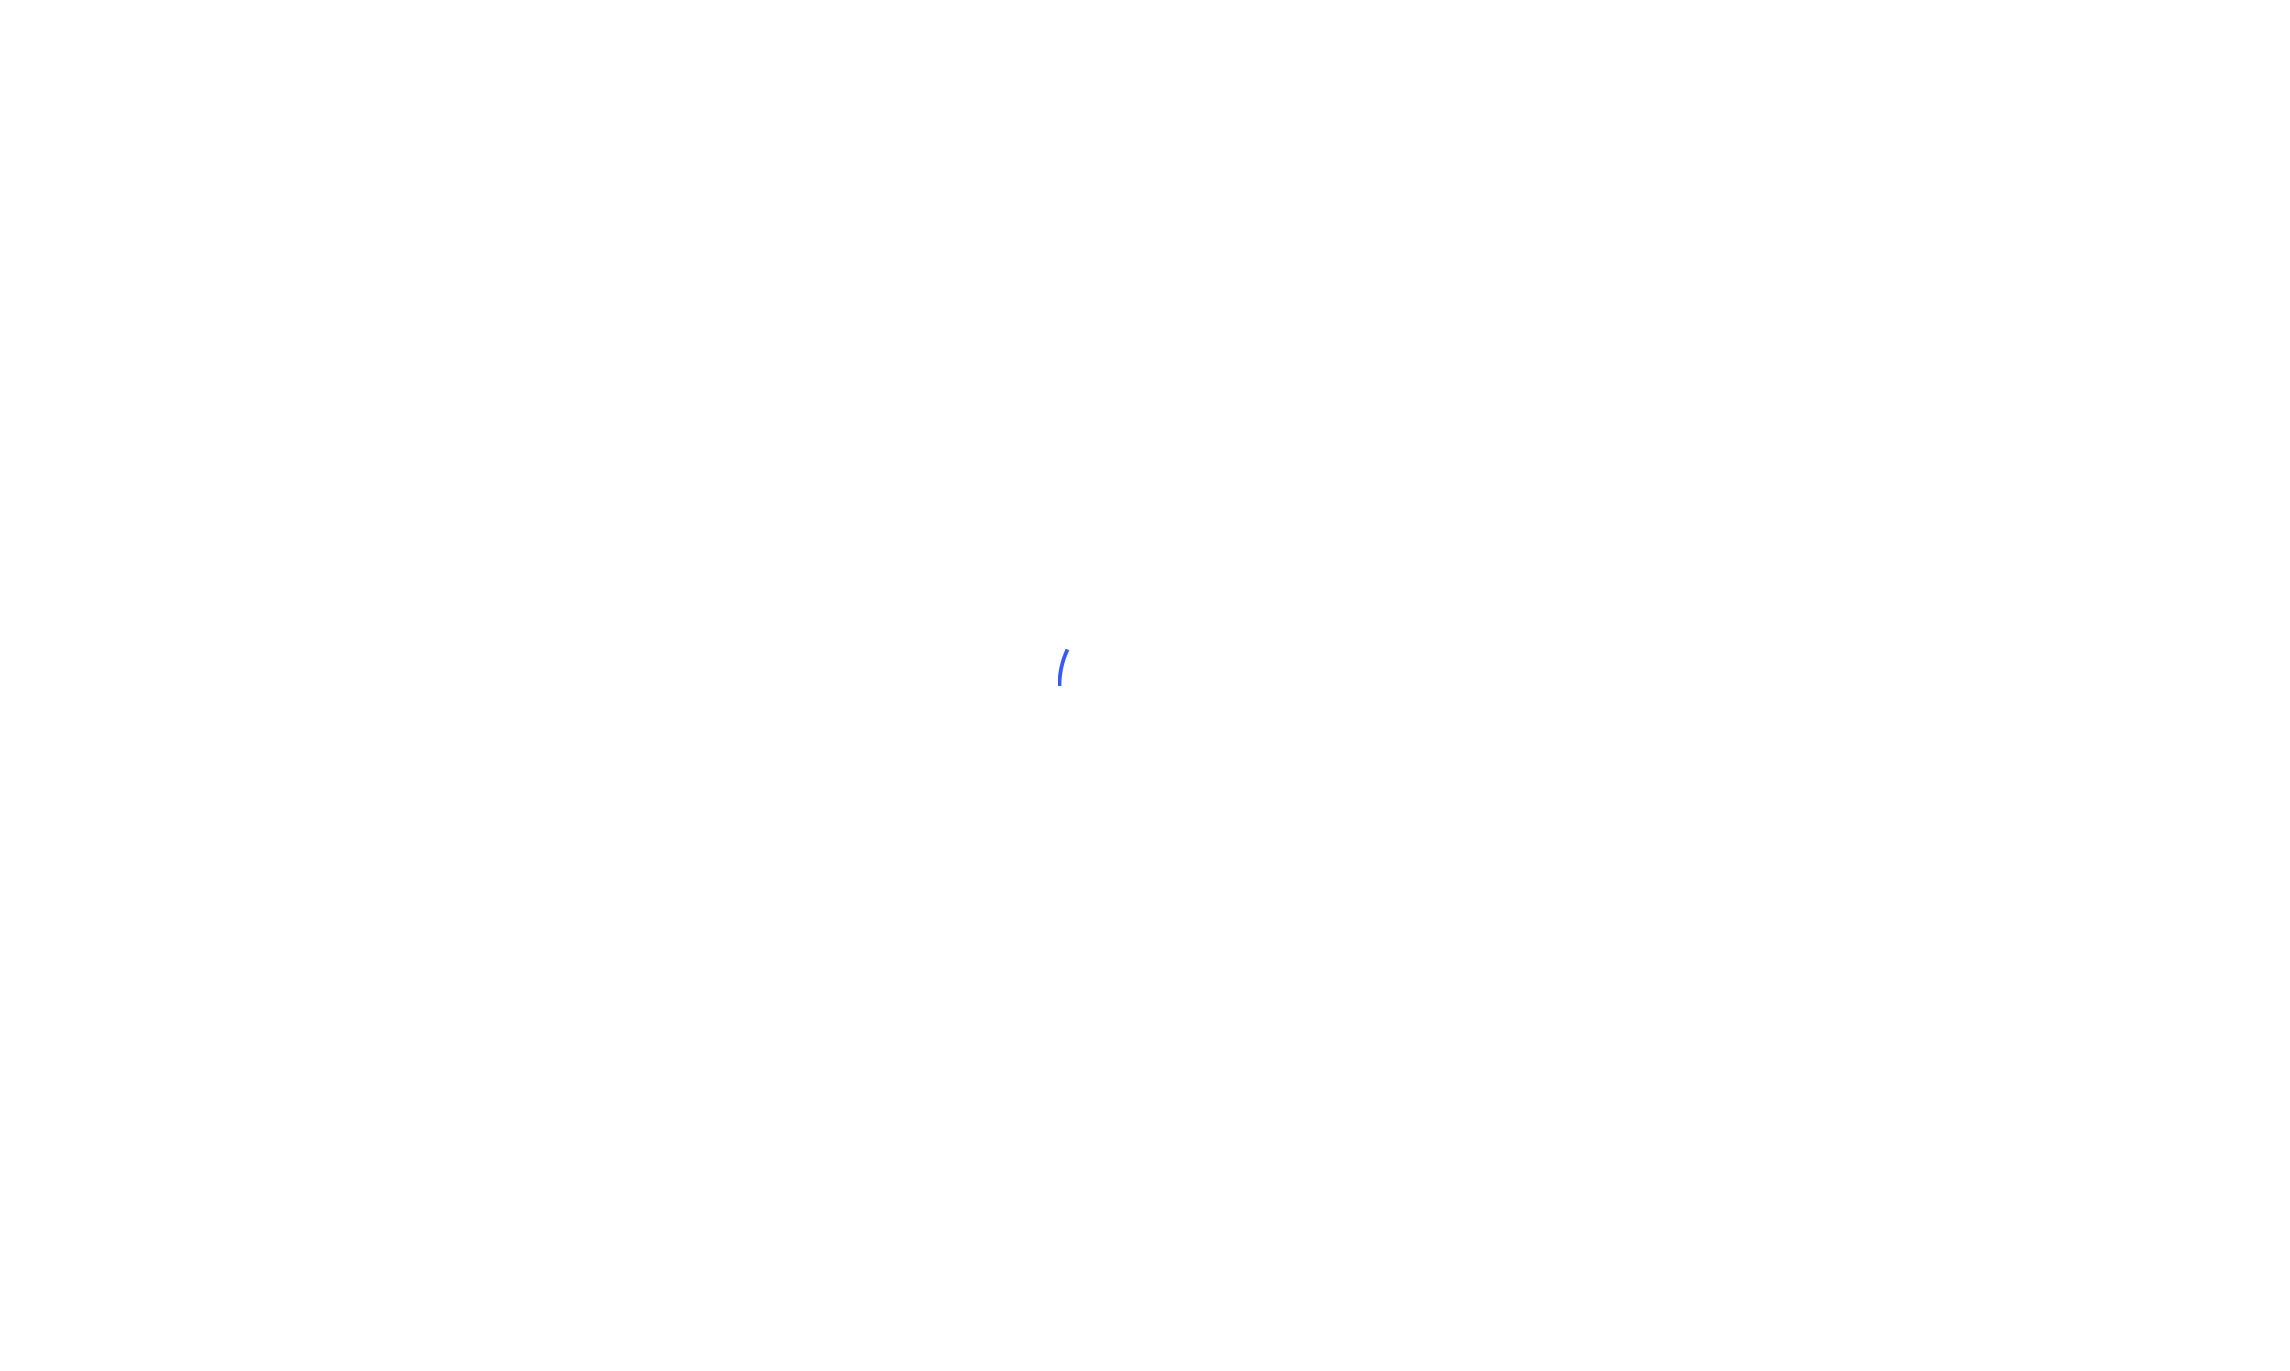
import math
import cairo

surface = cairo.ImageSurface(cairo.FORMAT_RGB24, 2290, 1371)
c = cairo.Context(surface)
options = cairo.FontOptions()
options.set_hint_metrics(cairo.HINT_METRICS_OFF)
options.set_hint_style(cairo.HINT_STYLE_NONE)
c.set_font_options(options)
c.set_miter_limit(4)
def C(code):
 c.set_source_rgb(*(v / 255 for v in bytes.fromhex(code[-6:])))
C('ffffff')
c.paint()
c.save()
c.rectangle(1058,599,175,87)
c.clip()
c.new_path()
c.move_to(1109,763)
c.curve_to(1066,743.5,1047.5,692,1067.5,649.5)
C('3957ff')
c.set_line_width(3.8)
c.stroke()
c.restore()
surface.write_to_png('o.png')
